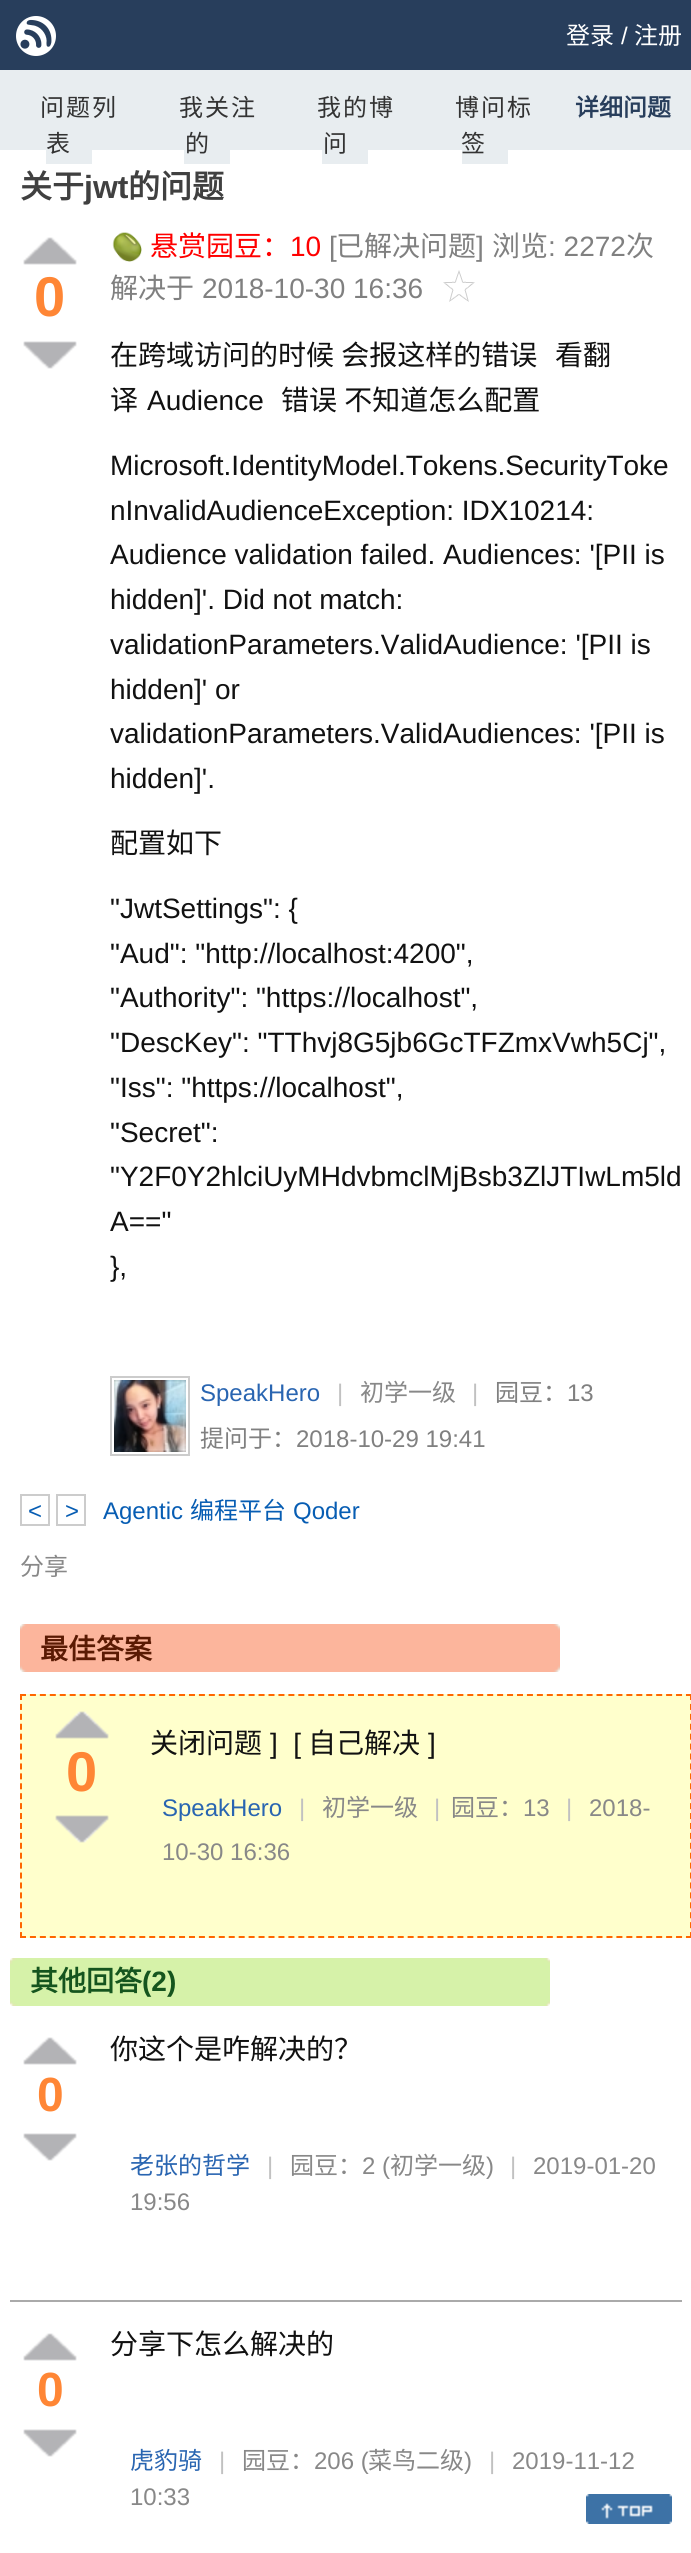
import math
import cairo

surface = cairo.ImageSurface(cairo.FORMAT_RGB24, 691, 2553)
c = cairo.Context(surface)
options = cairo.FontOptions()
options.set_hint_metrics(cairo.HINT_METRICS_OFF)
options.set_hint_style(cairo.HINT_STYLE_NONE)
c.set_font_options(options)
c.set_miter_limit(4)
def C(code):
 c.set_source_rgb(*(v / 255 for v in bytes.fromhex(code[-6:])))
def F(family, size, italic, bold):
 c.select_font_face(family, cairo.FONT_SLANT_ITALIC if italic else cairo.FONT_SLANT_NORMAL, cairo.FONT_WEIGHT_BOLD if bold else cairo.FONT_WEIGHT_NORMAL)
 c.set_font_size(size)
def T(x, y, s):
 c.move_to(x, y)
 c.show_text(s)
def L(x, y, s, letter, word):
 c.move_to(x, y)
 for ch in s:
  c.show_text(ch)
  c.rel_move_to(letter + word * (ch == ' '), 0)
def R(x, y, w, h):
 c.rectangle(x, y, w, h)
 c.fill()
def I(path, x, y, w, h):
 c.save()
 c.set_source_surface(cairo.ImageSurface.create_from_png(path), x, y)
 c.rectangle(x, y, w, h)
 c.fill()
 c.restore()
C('ffffff')
c.paint()
C('283e5c')
R(0,0,691,70)
I('1.png',16,16,40,40)
F('Noto Sans CJK SC',24,0,0)
C('ffffff')
T(566,44,'登录')
F('Liberation Sans',24,0,0)
T(621,44,'/')
F('Noto Sans CJK SC',24,0,0)
T(634,44,'注册')
C('e8edf0')
R(0,70,691,80)
C('333333')
L(40,116,'问题列',2,0)
C('e8edf0')
R(46,150,46,14)
C('333333')
L(46,152,'表',2,0)
L(179,116,'我关注',2,0)
C('e8edf0')
R(184,150,46,14)
C('333333')
L(185,152,'的',2,0)
L(317,116,'我的博',2,0)
C('e8edf0')
R(322,150,46,14)
C('333333')
L(323,152,'问',2,0)
L(455,116,'博问标',2,0)
C('e8edf0')
R(462,150,46,14)
C('333333')
L(461,152,'签',2,0)
F('Noto Sans CJK SC',24,0,1)
C('283e5c')
T(575,116,'详细问题')
F('Noto Sans CJK SC',32,0,1)
C('404040')
T(20,198,'关于')
F('Liberation Sans',32,0,1)
T(84,198,'jwt')
F('Noto Sans CJK SC',32,0,1)
T(128,198,'的问题')
I('2.png',23,237,54,28)
F('Liberation Sans',56,0,1)
C('ff8635')
T(34,316,'0')
I('3.png',23,341,54,28)
I('4.png',112,232,30,30)
F('Noto Sans CJK SC',28,0,0)
C('ff0000')
T(150,256,'悬赏园豆：')
F('Liberation Sans',28,0,0)
T(290,256,'10')
C('808080')
T(329,256,'[')
F('Noto Sans CJK SC',28,0,0)
T(336,256,'已解决问题')
F('Liberation Sans',28,0,0)
T(476,256,']')
F('Noto Sans CJK SC',28,0,0)
T(492,256,'浏览')
F('Liberation Sans',28,0,0)
T(548,256,': 2272')
F('Noto Sans CJK SC',28,0,0)
T(626,256,'次')
T(110,298,'解决于')
F('Liberation Sans',28,0,0)
T(202,298,'2018-10-30 16:36')
I('5.png',443,270,32,32)
F('Noto Sans CJK SC',28,0,0)
C('111111')
L(110,365,'在跨域访问的时候 会报这样的错误',0,1)
T(555,365,'看翻')
T(110,410,'译')
F('Liberation Sans',28,0,0)
T(147,410,'Audience')
F('Noto Sans CJK SC',28,0,0)
L(281,410,'错误 不知道怎么配置',0,1)
F('Liberation Sans',28,0,0)
T(110,475,'Microsoft.IdentityModel.Tokens.SecurityToke')
T(110,520,'nInvalidAudienceException: IDX10214:')
T(110,564,'Audience validation failed. Audiences: \'[PII is')
T(110,609,'hidden]\'. Did not match:')
T(110,654,'validationParameters.ValidAudience: \'[PII is')
T(110,699,'hidden]\' or')
T(110,743,'validationParameters.ValidAudiences: \'[PII is')
T(110,788,'hidden]\'.')
F('Noto Sans CJK SC',28,0,0)
T(110,853,'配置如下')
F('Liberation Sans',28,0,0)
T(110,918,'"JwtSettings": {')
T(110,963,'"Aud": "http://localhost:4200",')
T(110,1007,'"Authority": "https://localhost",')
T(110,1052,'"DescKey": "TThvj8G5jb6GcTFZmxVwh5Cj",')
T(110,1097,'"Iss": "https://localhost",')
T(110,1142,'"Secret":')
T(110,1186,'"Y2F0Y2hlciUyMHdvbmclMjBsb3ZlJTIwLm5ld')
T(110,1231,'A=="')
T(110,1276,'},')
c.rectangle(111,1377,78,78)
C('cccccc')
c.stroke()
I('6.png',114,1380,72,72)
F('Liberation Sans',24,0,0)
C('2965b1')
T(200,1401,'SpeakHero')
C('c1c1c1')
T(337,1401,'|')
F('Noto Sans CJK SC',24,0,0)
C('888888')
T(360,1401,'初学一级')
F('Liberation Sans',24,0,0)
C('c1c1c1')
T(472,1401,'|')
F('Noto Sans CJK SC',24,0,0)
C('808080')
T(495,1401,'园豆：')
F('Liberation Sans',24,0,0)
T(567,1401,'13')
F('Noto Sans CJK SC',24,0,0)
T(200,1447,'提问于：')
F('Liberation Sans',24,0,0)
T(296,1447,'2018-10-29 19:41')
c.rectangle(21,1495,28,30)
C('cccccc')
c.stroke()
C('075db3')
T(28,1519,'<')
c.rectangle(57,1495,28,30)
C('cccccc')
c.stroke()
C('075db3')
T(65,1519,'>')
T(103,1519,'Agentic')
F('Noto Sans CJK SC',24,0,0)
T(190,1519,'编程平台')
F('Liberation Sans',24,0,0)
T(293,1519,'Qoder')
F('Noto Sans CJK SC',24,0,0)
C('888888')
T(20,1575,'分享')
I('7.png',20,1624,540,48)
F('Noto Sans CJK SC',28,0,1)
C('5a1a03')
T(40,1659,'最佳答案')
C('ffffcc')
R(20,1694,671,244)
c.new_path()
c.move_to(20,1695)
c.line_to(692,1695)
C('ff6600')
c.set_dash([6,3.94])
c.stroke()
c.new_path()
c.move_to(691,1694)
c.line_to(691,1938)
c.set_dash([6,3.92])
c.stroke()
c.new_path()
c.move_to(20,1937)
c.line_to(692,1937)
c.set_dash([6,3.94])
c.stroke()
c.new_path()
c.move_to(21,1694)
c.line_to(21,1938)
c.set_dash([6,3.92])
c.stroke()
I('8.png',55,1711,54,28)
F('Liberation Sans',56,0,1)
C('ff8635')
T(66,1791,'0')
I('9.png',55,1815,54,28)
F('Noto Sans CJK SC',28,0,0)
C('111111')
T(150,1753,'关闭问题')
F('Liberation Sans',28,0,0)
T(270,1753,']  [')
F('Noto Sans CJK SC',28,0,0)
T(308,1753,'自己解决')
F('Liberation Sans',28,0,0)
T(428,1753,']')
F('Liberation Sans',24,0,0)
C('2965b1')
T(162,1816,'SpeakHero')
C('c1c1c1')
T(299,1816,'|')
F('Noto Sans CJK SC',24,0,0)
C('888888')
T(322,1816,'初学一级')
F('Liberation Sans',24,0,0)
C('c1c1c1')
T(434,1816,'|')
F('Noto Sans CJK SC',24,0,0)
C('888888')
T(451,1816,'园豆：')
F('Liberation Sans',24,0,0)
T(523,1816,'13')
C('c1c1c1')
T(566,1816,'|')
C('888888')
T(589,1816,'2018-')
T(162,1860,'10-30 16:36')
I('10.png',10,1958,540,48)
F('Noto Sans CJK SC',28,0,1)
C('15551e')
T(30,1991,'其他回答')
F('Liberation Sans',28,0,1)
T(142,1991,'(2)')
C('aaaaaa')
R(10,2300,672,2)
I('2.png',23,2037,54,28)
F('Liberation Sans',48,0,1)
C('ff8635')
T(37,2111,'0')
I('3.png',23,2133,54,28)
F('Noto Sans CJK SC',28,0,0)
C('111111')
T(110,2059,'你这个是咋解决的？')
F('Noto Sans CJK SC',24,0,0)
C('2965b1')
T(130,2174,'老张的哲学')
F('Liberation Sans',24,0,0)
C('c1c1c1')
T(267,2174,'|')
F('Noto Sans CJK SC',24,0,0)
C('888888')
T(290,2174,'园豆：')
F('Liberation Sans',24,0,0)
T(362,2174,'2 (')
F('Noto Sans CJK SC',24,0,0)
T(390,2174,'初学一级')
F('Liberation Sans',24,0,0)
T(486,2174,')')
C('c1c1c1')
T(510,2174,'|')
C('888888')
T(533,2174,'2019-01-20')
T(130,2210,'19:56')
I('2.png',23,2333,54,28)
F('Liberation Sans',48,0,1)
C('ff8635')
T(37,2406,'0')
I('3.png',23,2429,54,28)
F('Noto Sans CJK SC',28,0,0)
C('111111')
T(110,2354,'分享下怎么解决的')
F('Noto Sans CJK SC',24,0,0)
C('2965b1')
T(130,2469,'虎豹骑')
F('Liberation Sans',24,0,0)
C('c1c1c1')
T(219,2469,'|')
F('Noto Sans CJK SC',24,0,0)
C('888888')
T(242,2469,'园豆：')
F('Liberation Sans',24,0,0)
T(314,2469,'206 (')
F('Noto Sans CJK SC',24,0,0)
T(368,2469,'菜鸟二级')
F('Liberation Sans',24,0,0)
T(464,2469,')')
C('c1c1c1')
T(489,2469,'|')
C('888888')
T(512,2469,'2019-11-12')
T(130,2505,'10:33')
I('11.png',586,2494,86,30)
surface.write_to_png('o.png')
